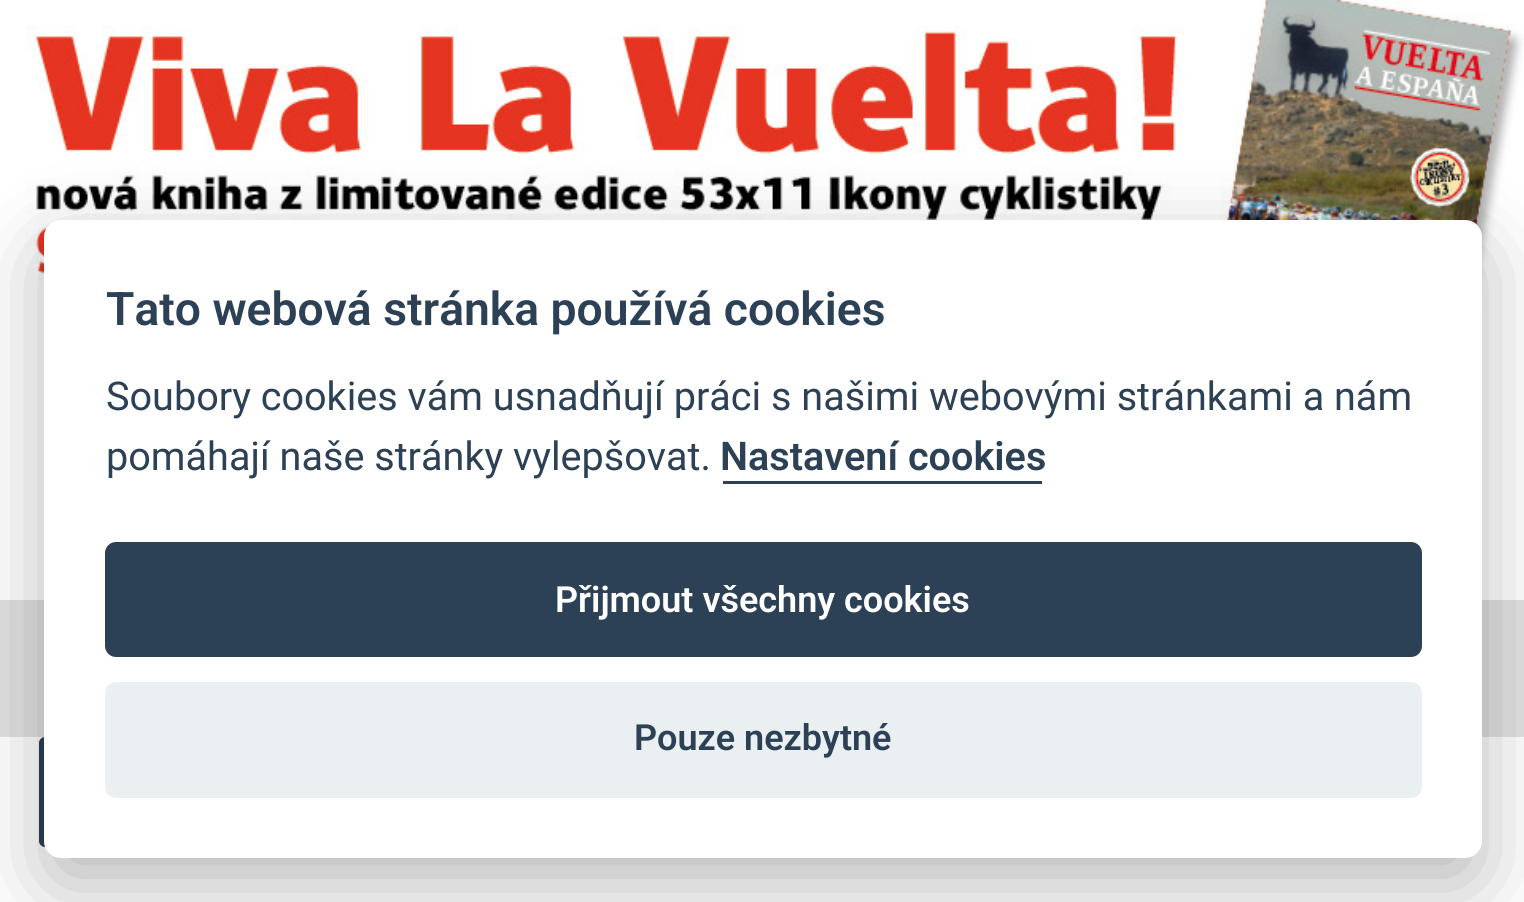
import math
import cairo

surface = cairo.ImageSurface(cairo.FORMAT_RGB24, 1524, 902)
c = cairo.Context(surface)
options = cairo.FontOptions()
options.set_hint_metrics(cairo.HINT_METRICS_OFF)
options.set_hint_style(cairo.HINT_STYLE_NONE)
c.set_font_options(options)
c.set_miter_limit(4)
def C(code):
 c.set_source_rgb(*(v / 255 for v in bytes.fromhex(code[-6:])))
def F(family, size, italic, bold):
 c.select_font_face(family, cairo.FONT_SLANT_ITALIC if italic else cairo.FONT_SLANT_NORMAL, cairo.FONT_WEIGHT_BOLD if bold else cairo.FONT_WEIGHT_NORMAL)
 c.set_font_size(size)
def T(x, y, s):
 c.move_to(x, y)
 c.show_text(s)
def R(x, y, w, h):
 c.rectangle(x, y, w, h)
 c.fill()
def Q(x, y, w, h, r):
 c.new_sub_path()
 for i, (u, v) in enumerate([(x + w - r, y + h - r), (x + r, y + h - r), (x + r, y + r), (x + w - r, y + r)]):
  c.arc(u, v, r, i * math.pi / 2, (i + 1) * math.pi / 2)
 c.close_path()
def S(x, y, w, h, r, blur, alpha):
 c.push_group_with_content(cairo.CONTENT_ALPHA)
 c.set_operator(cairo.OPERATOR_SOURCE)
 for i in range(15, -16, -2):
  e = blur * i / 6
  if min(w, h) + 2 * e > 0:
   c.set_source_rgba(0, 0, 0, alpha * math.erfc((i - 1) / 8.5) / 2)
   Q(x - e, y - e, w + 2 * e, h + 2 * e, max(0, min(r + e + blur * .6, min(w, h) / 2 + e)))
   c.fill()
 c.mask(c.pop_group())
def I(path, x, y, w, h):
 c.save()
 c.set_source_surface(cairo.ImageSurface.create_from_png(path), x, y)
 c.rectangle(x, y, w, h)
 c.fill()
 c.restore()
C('ffffff')
c.paint()
I('1.png',0,0,1524,319)
C('e2e2e2')
R(0,600,1524,137)
C('2d4156')
Q(39,737,110,110,6)
c.fill()
C('020203')
S(44,248,1438,638,17,41,.28)
C('ffffff')
Q(44,220,1438,638,17)
c.fill()
F('Roboto SemiBold',46.25,0,0)
C('2d4156')
T(106,325,'Tato webová stránka používá cookies')
F('Roboto',39.6,0,0)
T(106,410,'Soubory cookies vám usnadňují práci s našimi webovými stránkami a nám')
T(106,470,'pomáhají naše stránky vylepšovat.')
F('Roboto SemiBold',39.6,0,0)
T(720,470,'Nastavení cookies')
R(723,481,319,3)
Q(105,542,1317,115,11)
c.fill()
F('Roboto SemiBold',36,0,0)
C('ffffff')
T(555,612,'Přijmout všechny cookies')
C('eaeff2')
Q(105,682,1317,116,11)
c.fill()
C('2d4156')
T(634,750,'Pouze nezbytné')
surface.write_to_png('o.png')
